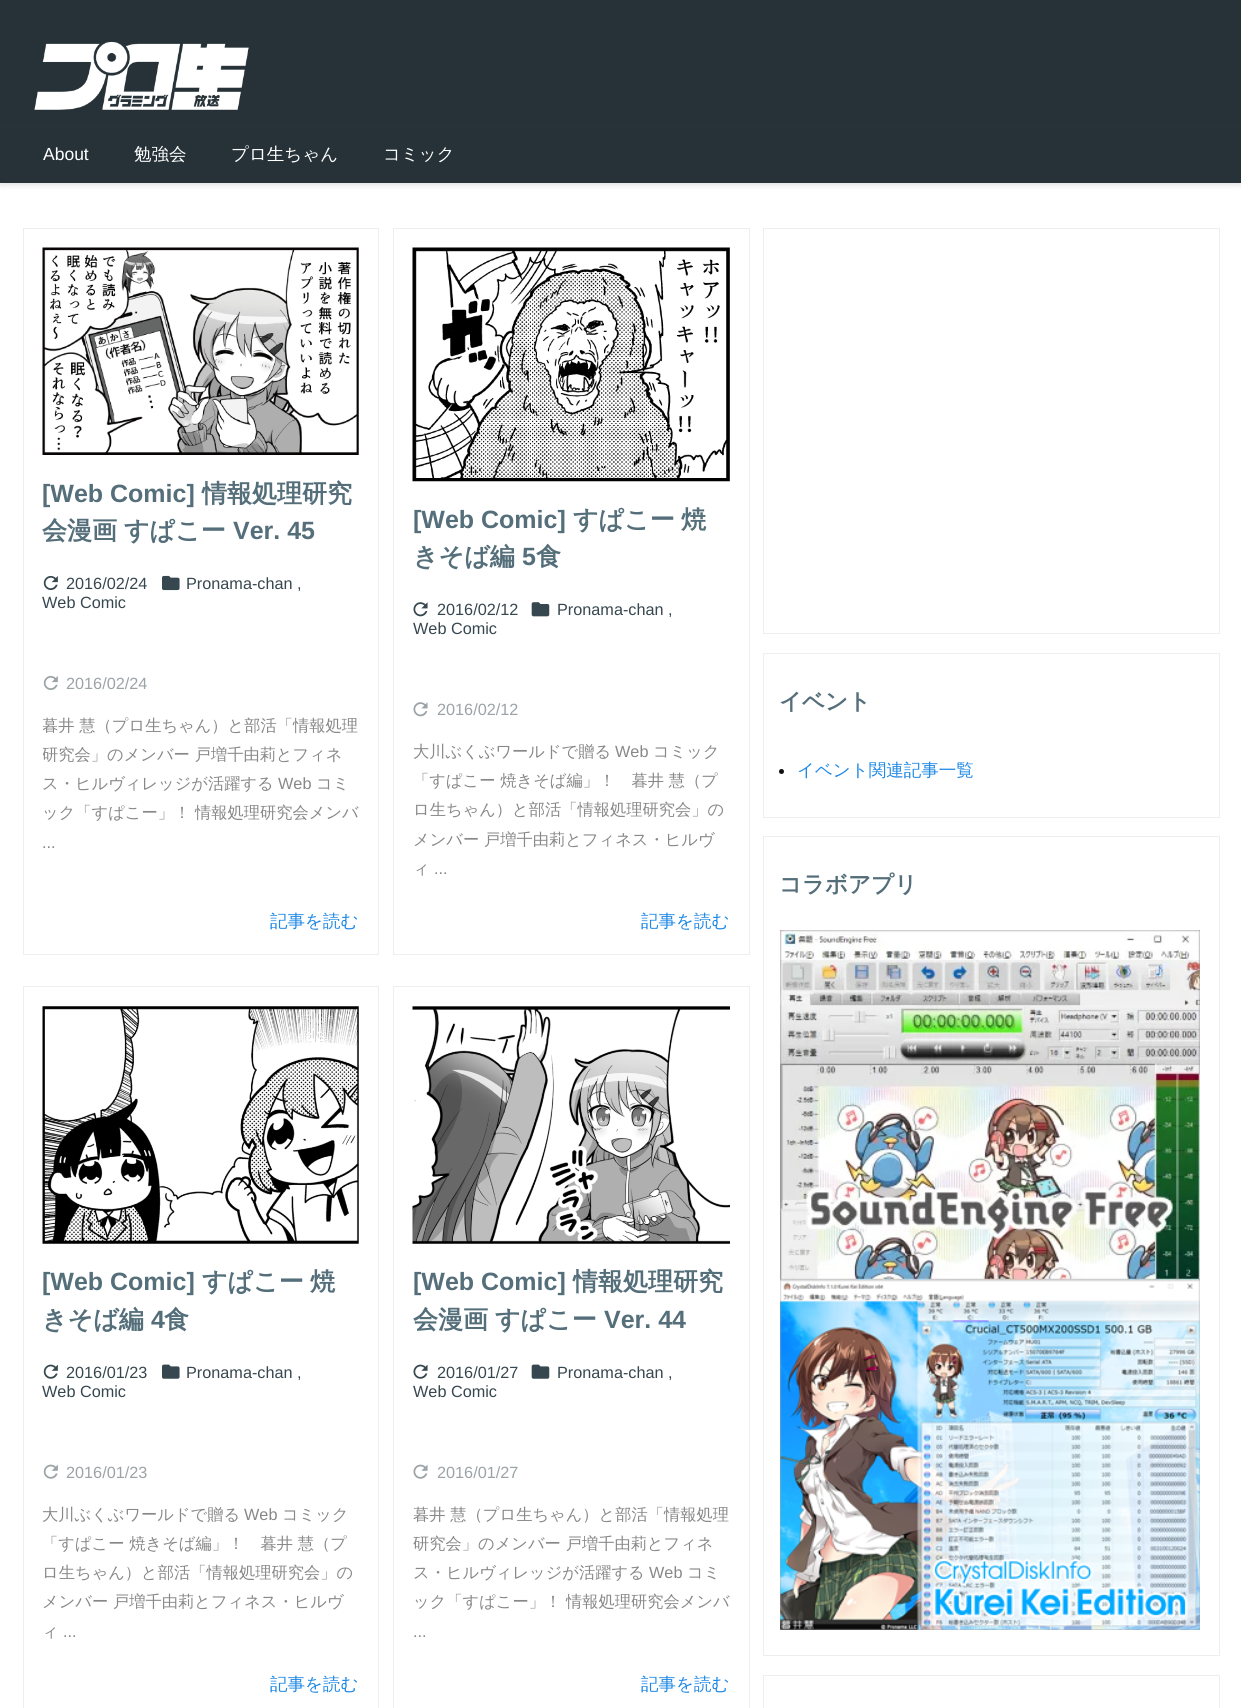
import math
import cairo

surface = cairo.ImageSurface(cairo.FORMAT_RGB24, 1241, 1708)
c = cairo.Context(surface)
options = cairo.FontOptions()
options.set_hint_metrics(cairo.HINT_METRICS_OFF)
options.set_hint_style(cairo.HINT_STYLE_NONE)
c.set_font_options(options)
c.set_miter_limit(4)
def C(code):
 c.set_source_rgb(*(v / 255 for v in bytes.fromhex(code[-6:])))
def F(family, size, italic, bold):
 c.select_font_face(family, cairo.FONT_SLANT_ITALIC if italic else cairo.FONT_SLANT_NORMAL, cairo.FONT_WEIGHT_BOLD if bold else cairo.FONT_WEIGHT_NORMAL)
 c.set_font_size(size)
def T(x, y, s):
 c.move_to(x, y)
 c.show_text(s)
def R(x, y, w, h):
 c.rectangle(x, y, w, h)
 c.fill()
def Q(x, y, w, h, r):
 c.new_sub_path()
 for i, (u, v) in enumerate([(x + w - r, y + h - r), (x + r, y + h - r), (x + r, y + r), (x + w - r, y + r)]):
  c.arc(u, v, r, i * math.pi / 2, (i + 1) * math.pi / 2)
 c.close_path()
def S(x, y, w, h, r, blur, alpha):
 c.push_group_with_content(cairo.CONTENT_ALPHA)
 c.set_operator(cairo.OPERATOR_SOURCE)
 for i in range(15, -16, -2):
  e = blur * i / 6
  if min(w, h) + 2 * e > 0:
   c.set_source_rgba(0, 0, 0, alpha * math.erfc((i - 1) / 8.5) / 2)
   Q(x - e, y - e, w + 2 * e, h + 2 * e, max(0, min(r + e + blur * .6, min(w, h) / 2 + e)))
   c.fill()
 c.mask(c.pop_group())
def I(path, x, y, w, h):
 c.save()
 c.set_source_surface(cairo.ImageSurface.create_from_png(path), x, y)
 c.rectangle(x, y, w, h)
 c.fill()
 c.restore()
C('ffffff')
c.paint()
C('263238')
R(0,0,1241,128)
I('1.png',34,41,215,69)
C('808080')
S(0,131,1241,55,0,2.5,.2)
C('263238')
R(0,128,1241,55)
F('Liberation Sans',17.5,0,0)
C('ffffff')
T(43,160,'About')
F('WenQuanYi Zen Hei Medium',17.5,0,0)
T(134,160,'勉強会')
T(231,160,'プロ生ちゃん')
T(383,160,'コミック')
c.rectangle(23.5,228.5,355,726)
C('eceff1')
c.set_line_width(1)
c.stroke()
I('2.png',42,247,317,208)
F('Liberation Sans',25,0,1)
C('546e7a')
T(42,502,'[Web Comic]')
F('WenQuanYi Zen Hei',25,0,1)
T(202,502,'情報処理研究')
T(42,539,'会漫画')
T(124,539,'すぱこー')
F('Liberation Sans',25,0,1)
T(233,539,'Ver. 45')
I('3.png',43,575,15,15)
I('4.png',162,575,18,16)
F('Liberation Sans',16.25,0,0)
C('37474f')
T(186,589,'Pronama-chan')
T(297,589,',')
T(42,608,'Web Comic')
T(66,589,'2016/02/24')
I('5.png',43,675,15,15)
C('9ba3a7')
T(66,689,'2016/02/24')
c.save()
c.rectangle(43,644,316,251)
c.clip()
F('WenQuanYi Zen Hei Medium',16.25,0,0)
C('888888')
T(42,731,'暮井 慧（プロ生ちゃん）と部活「情報処理')
T(42,760,'研究会」のメンバー 戸増千由莉とフィネ')
c.restore()
F('WenQuanYi Zen Hei Medium',16.25,0,0)
C('888888')
T(42,789,'ス・ヒルヴィレッジが活躍する')
F('Liberation Sans',16.25,0,0)
T(278,789,'Web')
F('WenQuanYi Zen Hei Medium',16.25,0,0)
T(316,789,'コミ')
T(42,818,'ック「すぱこー」！ 情報処理研究会メンバ')
F('Liberation Sans',16.25,0,0)
T(42,848,'...')
F('WenQuanYi Zen Hei Medium',17.5,0,0)
C('1e88e5')
T(270,927,'記事を読む')
c.rectangle(393.5,228.5,356,726)
C('eceff1')
c.stroke()
I('6.png',412,247,318,235)
F('Liberation Sans',25,0,1)
C('546e7a')
T(413,528,'[Web Comic]')
F('WenQuanYi Zen Hei',25,0,1)
T(573,528,'すぱこー')
T(681,528,'焼')
T(413,565,'きそば編')
F('Liberation Sans',25,0,1)
T(522,565,'5')
F('WenQuanYi Zen Hei',25,0,1)
T(536,565,'食')
I('7.png',413,602,15,15)
I('8.png',531,602,19,15)
F('Liberation Sans',16.25,0,0)
C('37474f')
T(557,615,'Pronama-chan')
T(668,615,',')
T(413,634,'Web Comic')
T(437,615,'2016/02/12')
I('9.png',413,702,15,15)
C('9ba3a7')
T(437,715,'2016/02/12')
F('WenQuanYi Zen Hei Medium',16.25,0,0)
C('888888')
T(413,757,'大川ぶくぶワールドで贈る')
F('Liberation Sans',16.25,0,0)
T(615,757,'Web')
F('WenQuanYi Zen Hei Medium',16.25,0,0)
T(653,757,'コミック')
T(413,786,'「すぱこー 焼きそば編」！　暮井 慧（プ')
T(413,815,'ロ生ちゃん）と部活「情報処理研究会」の')
T(413,845,'メンバー 戸増千由莉とフィネス・ヒルヴ')
T(413,874,'ィ')
F('Liberation Sans',16.25,0,0)
T(434,874,'...')
F('WenQuanYi Zen Hei Medium',17.5,0,0)
C('1e88e5')
T(641,927,'記事を読む')
c.rectangle(23.5,986.5,355,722)
C('eceff1')
c.stroke()
I('10.png',42,1006,317,238)
F('Liberation Sans',25,0,1)
C('546e7a')
T(42,1290,'[Web Comic]')
F('WenQuanYi Zen Hei',25,0,1)
T(202,1290,'すぱこー')
T(310,1290,'焼')
T(42,1328,'きそば編')
F('Liberation Sans',25,0,1)
T(151,1328,'4')
F('WenQuanYi Zen Hei',25,0,1)
T(164,1328,'食')
I('11.png',43,1364,15,15)
I('12.png',162,1364,18,15)
F('Liberation Sans',16.25,0,0)
C('37474f')
T(186,1378,'Pronama-chan')
T(297,1378,',')
T(42,1397,'Web Comic')
T(66,1378,'2016/01/23')
I('13.png',43,1464,15,15)
C('9ba3a7')
T(66,1478,'2016/01/23')
F('WenQuanYi Zen Hei Medium',16.25,0,0)
C('888888')
T(42,1520,'大川ぶくぶワールドで贈る')
F('Liberation Sans',16.25,0,0)
T(244,1520,'Web')
F('WenQuanYi Zen Hei Medium',16.25,0,0)
T(282,1520,'コミック')
T(42,1549,'「すぱこー 焼きそば編」！　暮井 慧（プ')
T(42,1578,'ロ生ちゃん）と部活「情報処理研究会」の')
T(42,1607,'メンバー 戸増千由莉とフィネス・ヒルヴ')
T(42,1637,'ィ')
F('Liberation Sans',16.25,0,0)
T(63,1637,'...')
F('WenQuanYi Zen Hei Medium',17.5,0,0)
C('1e88e5')
T(270,1690,'記事を読む')
c.rectangle(393.5,986.5,356,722)
C('eceff1')
c.stroke()
I('14.png',412,1006,318,238)
F('Liberation Sans',25,0,1)
C('546e7a')
T(413,1290,'[Web Comic]')
F('WenQuanYi Zen Hei',25,0,1)
T(573,1290,'情報処理研究')
T(413,1328,'会漫画')
T(495,1328,'すぱこー')
F('Liberation Sans',25,0,1)
T(604,1328,'Ver. 44')
I('15.png',413,1364,15,15)
I('16.png',531,1364,19,15)
F('Liberation Sans',16.25,0,0)
C('37474f')
T(557,1378,'Pronama-chan')
T(668,1378,',')
T(413,1397,'Web Comic')
T(437,1378,'2016/01/27')
I('17.png',413,1464,15,15)
C('9ba3a7')
T(437,1478,'2016/01/27')
F('WenQuanYi Zen Hei Medium',16.25,0,0)
C('888888')
T(413,1520,'暮井 慧（プロ生ちゃん）と部活「情報処理')
T(413,1549,'研究会」のメンバー 戸増千由莉とフィネ')
T(413,1578,'ス・ヒルヴィレッジが活躍する')
F('Liberation Sans',16.25,0,0)
T(649,1578,'Web')
F('WenQuanYi Zen Hei Medium',16.25,0,0)
T(687,1578,'コミ')
T(413,1607,'ック「すぱこー」！ 情報処理研究会メンバ')
F('Liberation Sans',16.25,0,0)
T(413,1637,'...')
F('WenQuanYi Zen Hei Medium',17.5,0,0)
C('1e88e5')
T(641,1690,'記事を読む')
c.rectangle(763.5,228.5,456,405)
C('eceff1')
c.stroke()
c.rectangle(763.5,653.5,456,164)
c.stroke()
F('WenQuanYi Zen Hei',22.5,0,1)
C('546e7a')
T(779,709,'イベント')
C('111111')
c.new_path()
c.arc(781.5,771.5,2.5,0,2 * math.pi)
c.fill()
F('WenQuanYi Zen Hei Medium',17.5,0,0)
C('1e88e5')
T(797,776,'イベント関連記事一覧')
c.rectangle(763.5,836.5,456,819)
C('eceff1')
c.stroke()
F('WenQuanYi Zen Hei',22.5,0,1)
C('546e7a')
T(779,892,'コラボアプリ')
I('18.png',780,930,420,350)
I('19.png',780,1280,420,350)
c.rectangle(763.5,1675.5,456,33)
C('eceff1')
c.stroke()
surface.write_to_png('o.png')
